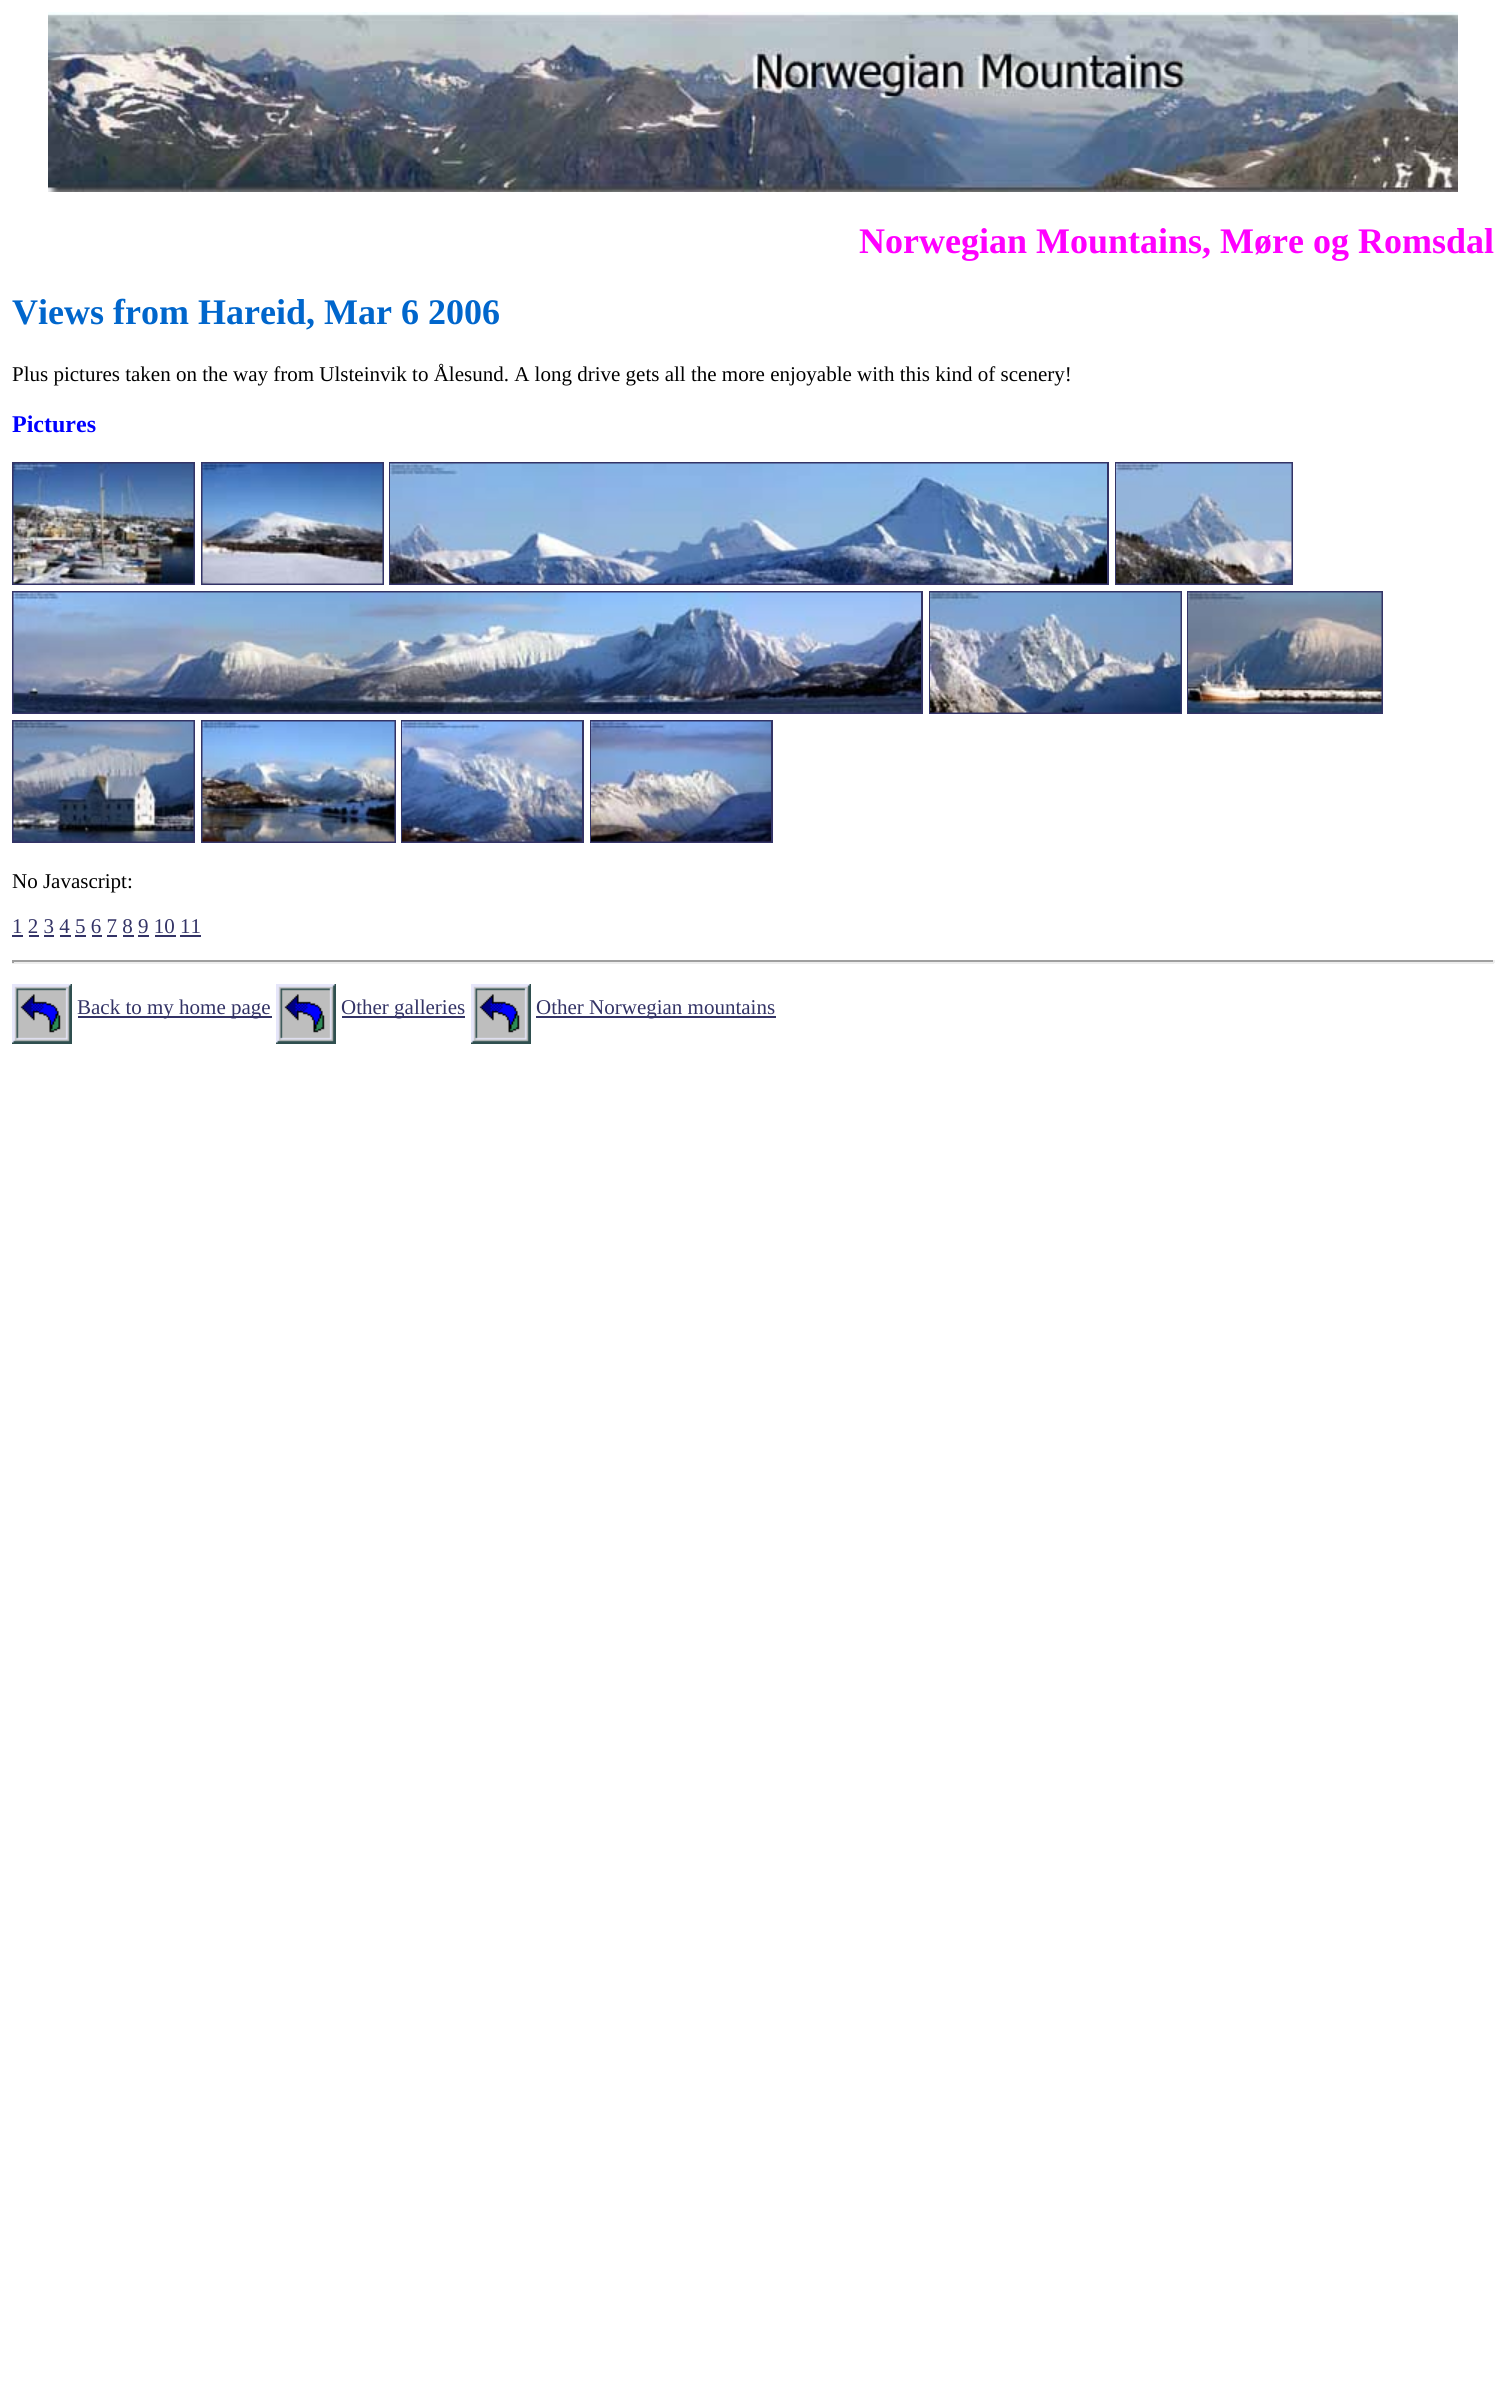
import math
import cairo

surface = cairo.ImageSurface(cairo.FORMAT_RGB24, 1506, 2387)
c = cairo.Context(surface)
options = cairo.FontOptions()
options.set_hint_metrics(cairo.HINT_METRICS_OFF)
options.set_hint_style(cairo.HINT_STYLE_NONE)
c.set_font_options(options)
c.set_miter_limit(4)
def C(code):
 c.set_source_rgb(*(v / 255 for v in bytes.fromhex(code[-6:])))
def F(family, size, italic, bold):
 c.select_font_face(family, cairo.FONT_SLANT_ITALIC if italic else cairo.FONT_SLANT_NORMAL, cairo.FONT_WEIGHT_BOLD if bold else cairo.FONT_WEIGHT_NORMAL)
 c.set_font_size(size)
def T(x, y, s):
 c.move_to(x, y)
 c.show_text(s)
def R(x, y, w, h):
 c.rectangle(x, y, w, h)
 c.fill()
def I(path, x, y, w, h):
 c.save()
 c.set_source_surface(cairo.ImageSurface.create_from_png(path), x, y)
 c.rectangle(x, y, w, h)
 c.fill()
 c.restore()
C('ffffff')
c.paint()
I('1.png',48,12,1410,180)
F('Liberation Serif',36,0,1)
C('ff00ff')
T(859,253,'Norwegian Mountains, Møre og Romsdal')
C('0066cc')
T(12,324,'Views from Hareid, Mar 6 2006')
F('Liberation Serif',21,0,0)
C('000000')
T(12,381,'Plus pictures taken on the way from Ulsteinvik to Ålesund. A long drive gets all the more enjoyable with this kind of scenery!')
F('Liberation Serif',24,0,1)
C('0000ff')
T(12,432,'Pictures')
c.rectangle(13,463,181,121)
C('333366')
c.stroke()
c.rectangle(202,463,181,121)
c.stroke()
c.rectangle(390,463,718,121)
c.stroke()
c.rectangle(1116,463,176,121)
c.stroke()
I('2.png',13,463,181,121)
I('3.png',202,463,181,121)
I('4.png',390,463,717,121)
I('5.png',1116,463,176,121)
c.rectangle(13,592,909,121)
c.stroke()
c.rectangle(930,592,251,121)
c.stroke()
c.rectangle(1188,592,194,121)
c.stroke()
I('6.png',13,592,908,121)
I('7.png',930,592,251,121)
I('8.png',1188,592,194,121)
c.rectangle(13,721,181,121)
c.stroke()
c.rectangle(202,721,193,121)
c.stroke()
c.rectangle(402,721,181,121)
c.stroke()
c.rectangle(591,721,181,121)
c.stroke()
I('9.png',13,721,181,121)
I('10.png',202,721,193,121)
I('11.png',402,721,180,121)
I('12.png',591,721,180,121)
F('Liberation Serif',21,0,0)
C('000000')
T(12,888,'No Javascript:')
C('333366')
T(12,933,'1 2 3 4 5 6 7 8 9 10 11')
R(12,935,11,2)
R(29,935,10,2)
R(44,935,10,2)
R(60,935,11,2)
R(75,935,11,2)
R(92,935,10,2)
R(107,935,10,2)
R(123,935,11,2)
R(138,935,11,2)
R(155,935,21,2)
R(180,935,21,2)
C('9f9f9f')
R(12,960,1482,2)
C('eeeeee')
R(1493,960,2,3)
R(12,962,1482,2)
C('9f9f9f')
R(12,960,2,3)
I('13.png',12,984,60,60)
C('333366')
R(78,1016,194,2)
T(77,1014,'Back to my home page')
I('14.png',276,984,60,60)
R(342,1016,123,2)
T(341,1014,'Other galleries')
I('15.png',471,984,60,60)
R(536,1016,240,2)
T(536,1014,'Other Norwegian mountains')
surface.write_to_png('o.png')
